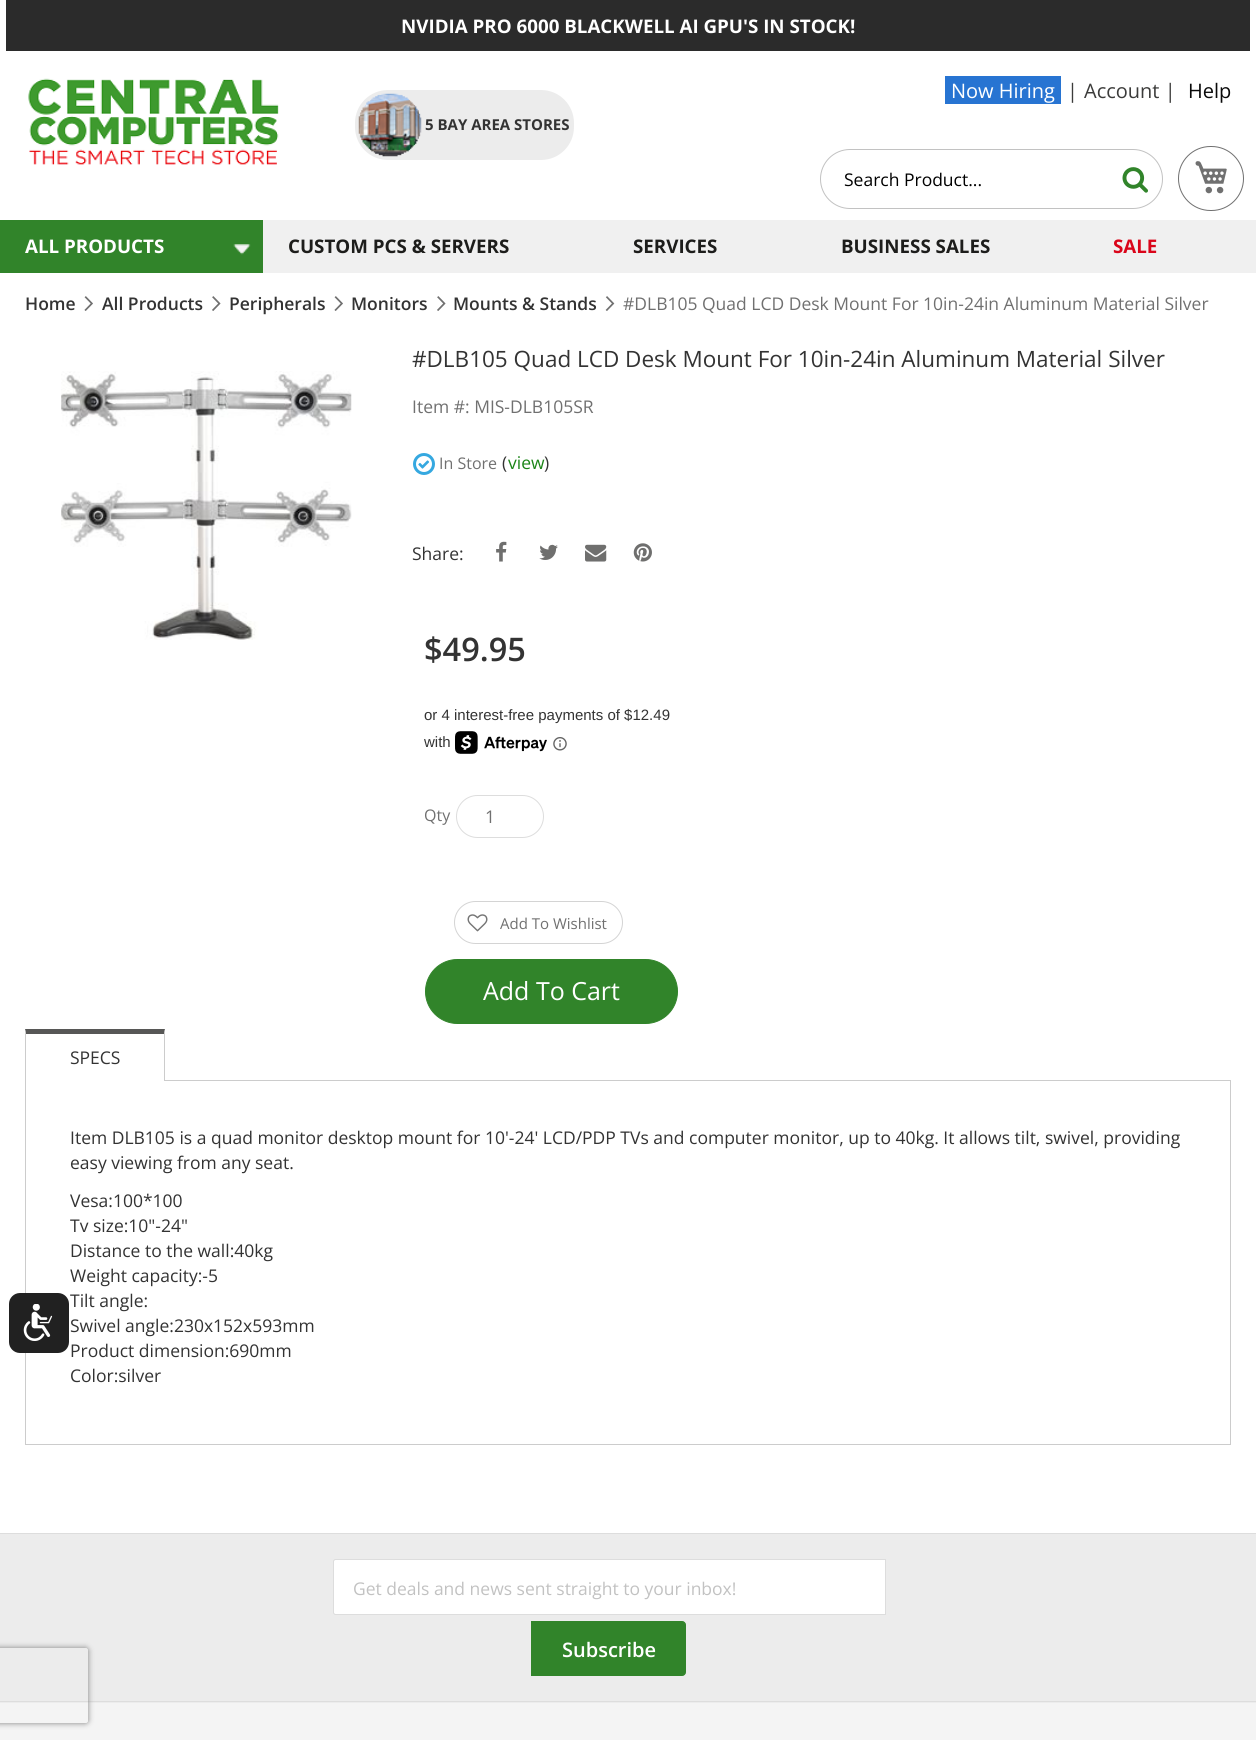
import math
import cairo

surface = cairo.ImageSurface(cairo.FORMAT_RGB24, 1256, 1740)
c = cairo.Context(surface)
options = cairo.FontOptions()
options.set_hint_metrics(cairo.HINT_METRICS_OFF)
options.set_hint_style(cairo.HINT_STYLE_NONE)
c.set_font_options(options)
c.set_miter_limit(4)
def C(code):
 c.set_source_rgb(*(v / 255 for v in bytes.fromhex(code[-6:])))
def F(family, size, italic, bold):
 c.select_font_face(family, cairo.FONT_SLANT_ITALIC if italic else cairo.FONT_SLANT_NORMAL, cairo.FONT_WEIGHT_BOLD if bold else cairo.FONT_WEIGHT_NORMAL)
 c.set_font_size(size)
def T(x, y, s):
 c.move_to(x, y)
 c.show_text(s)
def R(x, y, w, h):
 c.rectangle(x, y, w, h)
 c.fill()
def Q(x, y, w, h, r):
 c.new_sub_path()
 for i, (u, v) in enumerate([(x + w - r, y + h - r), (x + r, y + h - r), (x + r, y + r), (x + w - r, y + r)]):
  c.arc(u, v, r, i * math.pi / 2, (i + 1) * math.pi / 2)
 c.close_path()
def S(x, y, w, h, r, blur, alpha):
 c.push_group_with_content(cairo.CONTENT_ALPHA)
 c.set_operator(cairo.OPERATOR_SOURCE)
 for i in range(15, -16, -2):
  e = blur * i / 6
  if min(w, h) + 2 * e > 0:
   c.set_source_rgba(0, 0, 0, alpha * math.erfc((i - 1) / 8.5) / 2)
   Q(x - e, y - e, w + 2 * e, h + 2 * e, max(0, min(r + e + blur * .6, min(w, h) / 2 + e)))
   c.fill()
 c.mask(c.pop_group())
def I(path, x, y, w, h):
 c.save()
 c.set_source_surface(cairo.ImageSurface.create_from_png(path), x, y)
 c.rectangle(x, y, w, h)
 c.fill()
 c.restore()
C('ffffff')
c.paint()
C('2b2b2b')
R(6,0,1244,51)
F('Open Sans',18.75,0,1)
C('ffffff')
T(401,33,'NVIDIA PRO 6000 BLACKWELL AI GPU\'S IN STOCK!')
C('2774d2')
R(945,76,116,28)
F('Open Sans',20,0,0)
C('ffffff')
T(951,98,'Now Hiring')
C('3c3c3b')
T(1067,98,'|')
T(1084,98,'Account |')
C('090909')
T(1188,98,'Help')
I('1.png',28,78,251,87)
C('ececec')
Q(355,90,219,70,33)
c.fill()
I('2.png',358,93,64,64)
F('Open Sans',15,0,1)
C('333333')
T(425,130,'5 BAY AREA STORES')
Q(820.5,149.5,342,59,29.5)
C('c2c2c2')
c.set_line_width(1)
c.stroke()
F('Open Sans',17.5,0,0)
C('000000')
T(844,186,'Search Product...')
I('3.png',1122,167,26,26)
Q(1178.5,146.5,65,64,32)
C('707070')
c.stroke()
I('4.png',1195,161,32,33)
C('f0f0f0')
R(263,220,993,53)
C('31842a')
R(0,220,263,53)
I('5.png',233,244,18,11)
F('Open Sans',18.75,0,1)
C('ffffff')
T(25,253,'ALL PRODUCTS')
C('1d1d1b')
T(288,253,'CUSTOM PCS & SERVERS')
T(633,253,'SERVICES')
T(841,253,'BUSINESS SALES')
C('da051a')
T(1113,253,'SALE')
F('Open Sans SemiBold',17.5,0,0)
C('333333')
T(25,310,'Home')
I('6.png',84,296,9,15)
T(102,310,'All Products')
I('7.png',212,296,9,15)
T(229,310,'Peripherals')
I('6.png',334,296,9,15)
T(351,310,'Monitors')
I('7.png',437,296,9,15)
T(453,310,'Mounts & Stands')
I('8.png',605,296,10,15)
F('Open Sans',17.5,0,0)
C('707070')
T(623,310,'#DLB105 Quad LCD Desk Mount For 10in-24in Aluminum Material Silver')
I('9.png',61,371,291,269)
F('Open Sans',22.5,0,0)
C('333333')
T(412,367,'#DLB105 Quad LCD Desk Mount For 10in-24in Aluminum Material Silver')
F('Open Sans',17.5,0,0)
C('707070')
T(412,413,'Item #: MIS-DLB105SR')
c.new_path()
c.arc(424,464,9.5,0,2 * math.pi)
C('35a8e0')
c.set_line_width(3)
c.stroke()
F('Open Sans',16,0,0)
C('707070')
T(439,469,'In Store')
F('Open Sans',17.5,0,0)
C('333333')
T(502,469,'(')
C('1a8416')
T(508,469,'view')
C('333333')
T(544,469,')')
I('10.png',418,460,12,9)
T(412,560,'Share:')
I('11.png',496,541,11,21)
I('12.png',539,544,19,16)
I('13.png',585,544,22,18)
I('14.png',633,543,19,19)
F('Open Sans SemiBold',32.5,0,0)
T(424,661,'$49.95')
F('Liberation Sans',15,0,0)
T(424,720,'or 4 interest-free payments of $12.49')
T(424,747,'with')
I('15.png',455,731,92,23)
I('16.png',553,737,14,14)
F('Open Sans',16,0,0)
C('707070')
T(424,821,'Qty')
Q(456.5,795.5,87,42,21)
C('dddddd')
c.set_line_width(1)
c.stroke()
F('Open Sans',17.5,0,0)
C('707070')
T(485,823,'1')
Q(454.5,901.5,168,42,21)
C('d4d4d4')
c.stroke()
I('17.png',467,914,21,18)
F('Open Sans',15,0,0)
C('707070')
T(500,929,'Add To Wishlist')
C('31842a')
Q(425.5,959.5,252,64,32)
c.fill_preserve()
c.stroke()
F('Open Sans',25,0,0)
C('ffffff')
T(483,1000,'Add To Cart')
c.rectangle(25.5,1080.5,1205,364)
C('cccccc')
c.stroke()
C('ffffff')
R(25,1080,140,1)
C('575756')
c.new_path()
c.move_to(25,1029)
c.line_to(165,1029)
c.line_to(164,1034)
c.line_to(26,1034)
c.close_path()
c.fill()
C('cccccc')
c.new_path()
c.move_to(165,1029)
c.line_to(165,1081)
c.line_to(164,1081)
c.line_to(164,1034)
c.close_path()
c.fill()
c.new_path()
c.move_to(25,1081)
c.line_to(25,1029)
c.line_to(26,1034)
c.line_to(26,1081)
c.close_path()
c.fill()
F('Open Sans',17.5,0,0)
C('333333')
T(70,1064,'SPECS')
T(70,1144,'Item DLB105 is a quad monitor desktop mount for 10\'-24\' LCD/PDP TVs and computer monitor, up to 40kg. It allows tilt, swivel, providing')
T(70,1169,'easy viewing from any seat.')
T(70,1207,'Vesa:100*100')
T(70,1232,'Tv size:10"-24"')
T(70,1257,'Distance to the wall:40kg')
T(70,1282,'Weight capacity:-5')
T(70,1307,'Tilt angle:')
T(70,1332,'Swivel angle:230x152x593mm')
T(70,1357,'Product dimension:690mm')
T(70,1382,'Color:silver')
C('f4f4f4')
R(0,1703,1256,37)
C('ececec')
R(0,1534,1256,169)
C('dddddd')
R(0,1533,1256,1)
R(0,1701,1256,1)
C('ffffff')
c.new_path()
c.move_to(335,1560)
c.line_to(885,1560)
c.line_to(885,1614)
c.line_to(335,1614)
c.curve_to(334.5,1614,334,1613.5,334,1613)
c.line_to(334,1561)
c.curve_to(334,1560.5,334.5,1560,335,1560)
c.close_path()
c.fill()
c.new_path()
c.move_to(335.5,1559.5)
c.line_to(885.5,1559.5)
c.line_to(885.5,1614.5)
c.line_to(335.5,1614.5)
c.curve_to(334.5,1614.5,333.5,1613.5,333.5,1612.5)
c.line_to(333.5,1561.5)
c.curve_to(333.5,1560.5,334.5,1559.5,335.5,1559.5)
c.close_path()
C('dddddd')
c.stroke()
C('c2c2c2')
T(353,1595,'Get deals and news sent straight to your inbox!')
C('31842a')
c.new_path()
c.move_to(531.5,1621.5)
c.line_to(682,1621.5)
c.curve_to(684,1621.5,685.5,1623,685.5,1625)
c.line_to(685.5,1672)
c.curve_to(685.5,1674,684,1675.5,682,1675.5)
c.line_to(531.5,1675.5)
c.close_path()
c.fill_preserve()
c.stroke()
F('Open Sans SemiBold',20,0,0)
C('ffffff')
T(562,1657,'Subscribe')
C('212121')
Q(9,1293,60,60,11)
c.fill()
I('18.png',23,1304,30,37)
c.save()
c.set_fill_rule(cairo.FILL_RULE_EVEN_ODD)
c.new_path()
c.move_to(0,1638)
c.line_to(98,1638)
c.line_to(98,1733)
c.line_to(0,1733)
c.close_path()
c.move_to(-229.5,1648)
c.line_to(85.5,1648)
c.curve_to(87,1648,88,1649,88,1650.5)
c.line_to(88,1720.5)
c.curve_to(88,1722,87,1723,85.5,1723)
c.line_to(-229.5,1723)
c.curve_to(-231,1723,-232,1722,-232,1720.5)
c.line_to(-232,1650.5)
c.curve_to(-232,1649,-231,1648,-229.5,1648)
c.close_path()
c.clip()
C('808080')
S(-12,1648,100,75,2.5,3,1)
c.restore()
surface.write_to_png('o.png')
